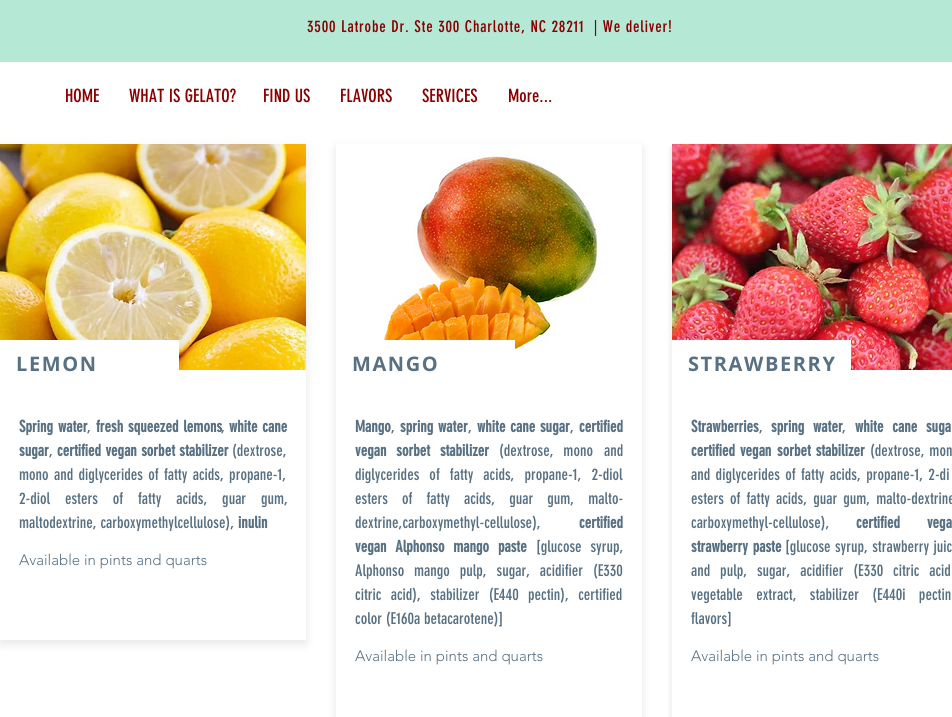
import math
import cairo

surface = cairo.ImageSurface(cairo.FORMAT_RGB24, 952, 717)
c = cairo.Context(surface)
options = cairo.FontOptions()
options.set_hint_metrics(cairo.HINT_METRICS_OFF)
options.set_hint_style(cairo.HINT_STYLE_NONE)
c.set_font_options(options)
c.set_miter_limit(4)
def C(code):
 c.set_source_rgb(*(v / 255 for v in bytes.fromhex(code[-6:])))
def F(family, size, italic, bold):
 c.select_font_face(family, cairo.FONT_SLANT_ITALIC if italic else cairo.FONT_SLANT_NORMAL, cairo.FONT_WEIGHT_BOLD if bold else cairo.FONT_WEIGHT_NORMAL)
 c.set_font_size(size)
def T(x, y, s):
 c.move_to(x, y)
 c.show_text(s)
def L(x, y, s, letter, word):
 c.move_to(x, y)
 for ch in s:
  c.show_text(ch)
  c.rel_move_to(letter + word * (ch == ' '), 0)
def R(x, y, w, h):
 c.rectangle(x, y, w, h)
 c.fill()
def Q(x, y, w, h, r):
 c.new_sub_path()
 for i, (u, v) in enumerate([(x + w - r, y + h - r), (x + r, y + h - r), (x + r, y + r), (x + w - r, y + r)]):
  c.arc(u, v, r, i * math.pi / 2, (i + 1) * math.pi / 2)
 c.close_path()
def S(x, y, w, h, r, blur, alpha):
 c.push_group_with_content(cairo.CONTENT_ALPHA)
 c.set_operator(cairo.OPERATOR_SOURCE)
 for i in range(15, -16, -2):
  e = blur * i / 6
  if min(w, h) + 2 * e > 0:
   c.set_source_rgba(0, 0, 0, alpha * math.erfc((i - 1) / 8.5) / 2)
   Q(x - e, y - e, w + 2 * e, h + 2 * e, max(0, min(r + e + blur * .6, min(w, h) / 2 + e)))
   c.fill()
 c.mask(c.pop_group())
def I(path, x, y, w, h):
 c.save()
 c.set_source_surface(cairo.ImageSurface.create_from_png(path), x, y)
 c.rectangle(x, y, w, h)
 c.fill()
 c.restore()
C('ffffff')
c.paint()
C('b5e8d5')
R(0,0,952,62)
F('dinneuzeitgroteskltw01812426',16,0,0)
C('8b0000')
L(307,32,'3500 Latrobe Dr. Ste 300 Charlotte, NC 28211  | We deliver!',.8,0)
F('dinneuzeitgroteskltw01812426',18,0,0)
T(65,102,'HOME')
T(129,102,'WHAT IS GELATO?')
T(263,102,'FIND US')
T(340,102,'FLAVORS')
T(422,102,'SERVICES')
T(508,102,'More...')
c.save()
c.set_fill_rule(cairo.FILL_RULE_EVEN_ODD)
c.new_path()
c.move_to(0,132)
c.line_to(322,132)
c.line_to(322,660)
c.line_to(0,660)
c.close_path()
c.move_to(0,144)
c.line_to(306,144)
c.line_to(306,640)
c.line_to(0,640)
c.close_path()
c.clip()
C('000000')
S(0,148,306,496,0,5,.1)
c.restore()
I('1.png',0,144,306,226)
C('ffffff')
R(0,340,179,30)
F('Open Sans',20,0,1)
C('577083')
L(16,371,'LEMON',1.6,0)
F('dinneuzeitgroteskltw01812426',16,0,1)
L(19,432,'Spring water',0,1)
F('dinneuzeitgroteskltw01812426',16,0,0)
T(87,432,',')
F('dinneuzeitgroteskltw01812426',16,0,1)
L(96,432,'fresh squeezed lemons',0,1)
F('dinneuzeitgroteskltw01812426',16,0,0)
T(221,432,',')
F('dinneuzeitgroteskltw01812426',16,0,1)
L(229,432,'white cane',0,1)
T(19,456,'sugar')
F('dinneuzeitgroteskltw01812426',16,0,0)
T(49,456,',')
F('dinneuzeitgroteskltw01812426',16,0,1)
L(57,456,'certified vegan sorbet stabilizer',0,.5)
F('dinneuzeitgroteskltw01812426',16,0,0)
T(232,456,'(dextrose,')
L(19,480,'mono and diglycerides of fatty acids, propane-1,',0,1.5)
L(19,504,'2-diol esters of fatty acids, guar gum,',0,11)
T(19,528,'maltodextrine, carboxymethylcellulose),')
F('dinneuzeitgroteskltw01812426',16,0,1)
T(238,528,'inulin')
F('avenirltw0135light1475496 Light',15,0,0)
T(19,565,'Available in pints and quarts')
c.save()
c.set_fill_rule(cairo.FILL_RULE_EVEN_ODD)
c.new_path()
c.move_to(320,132)
c.line_to(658,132)
c.line_to(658,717)
c.line_to(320,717)
c.close_path()
c.move_to(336,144)
c.line_to(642,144)
c.line_to(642,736)
c.line_to(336,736)
c.close_path()
c.clip()
C('000000')
S(336,148,306,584,0,5,.1)
c.restore()
I('2.png',379,156,219,201)
C('ffffff')
R(379,340,136,17)
F('Open Sans',20,0,1)
C('577083')
L(352,371,'MANGO',1.6,0)
F('dinneuzeitgroteskltw01812426',16,0,1)
T(355,432,'Mango')
F('dinneuzeitgroteskltw01812426',16,0,0)
T(391,432,',')
F('dinneuzeitgroteskltw01812426',16,0,1)
L(400,432,'spring water',0,1)
F('dinneuzeitgroteskltw01812426',16,0,0)
T(468,432,',')
F('dinneuzeitgroteskltw01812426',16,0,1)
L(477,432,'white cane sugar',0,1)
F('dinneuzeitgroteskltw01812426',16,0,0)
T(570,432,',')
F('dinneuzeitgroteskltw01812426',16,0,1)
T(579,432,'certified')
L(355,456,'vegan sorbet stabilizer',0,6)
F('dinneuzeitgroteskltw01812426',16,0,0)
L(499,456,'(dextrose, mono',0,6)
T(604,456,'and')
L(355,480,'diglycerides of fatty acids, propane-1, 2-diol',0,6.25)
L(355,504,'esters of fatty acids, guar gum, malto-',0,10.25)
T(355,528,'dextrine,carboxymethyl-cellulose),')
F('dinneuzeitgroteskltw01812426',16,0,1)
T(579,528,'certified')
L(355,552,'vegan Alphonso mango paste',0,5)
F('dinneuzeitgroteskltw01812426',16,0,0)
L(536,552,'[glucose syrup,',0,5)
L(355,576,'Alphonso mango pulp, sugar, acidifier (E330',0,6)
L(355,600,'citric acid), stabilizer (E440 pectin), certified',0,5.5)
T(355,624,'color (E160a betacarotene)]')
F('avenirltw0135light1475496 Light',15,0,0)
T(355,661,'Available in pints and quarts')
c.save()
c.rectangle(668,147,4,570)
c.clip()
C('000000')
S(672,148,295,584,0,5,.1)
c.restore()
I('3.png',672,144,280,226)
C('ffffff')
R(672,340,179,30)
F('Open Sans',20,0,1)
C('577083')
L(688,371,'STRAWBERRY',1.6,0)
F('dinneuzeitgroteskltw01812426',16,0,1)
T(691,432,'Strawberries')
F('dinneuzeitgroteskltw01812426',16,0,0)
T(759,432,',')
F('dinneuzeitgroteskltw01812426',16,0,1)
L(771,432,'spring water',0,5)
F('dinneuzeitgroteskltw01812426',16,0,0)
T(842,432,',')
F('dinneuzeitgroteskltw01812426',16,0,1)
L(855,432,'white cane suga',0,5)
L(691,456,'certified vegan',0,1)
L(777,456,'sorbet stabilizer',0,1)
F('dinneuzeitgroteskltw01812426',16,0,0)
L(870,456,'(dextrose, mon',0,1)
L(691,480,'and diglycerides of fatty acids, propane-1, 2-di',0,1.5)
L(691,504,'esters of fatty acids, guar gum, malto-dextrine',0,2.25)
T(691,528,'carboxymethyl-cellulose),')
F('dinneuzeitgroteskltw01812426',16,0,1)
L(856,528,'certified vega',0,23)
L(691,552,'strawberry paste',0,1)
F('dinneuzeitgroteskltw01812426',16,0,0)
L(785,552,'[glucose syrup, strawberry juic',0,.5)
L(691,576,'and pulp, sugar, acidifier (E330 citric acid',0,6)
L(691,600,'vegetable extract, stabilizer (E440i pectin',0,9.5)
T(691,624,'flavors]')
F('avenirltw0135light1475496 Light',15,0,0)
T(691,661,'Available in pints and quarts')
surface.write_to_png('o.png')
